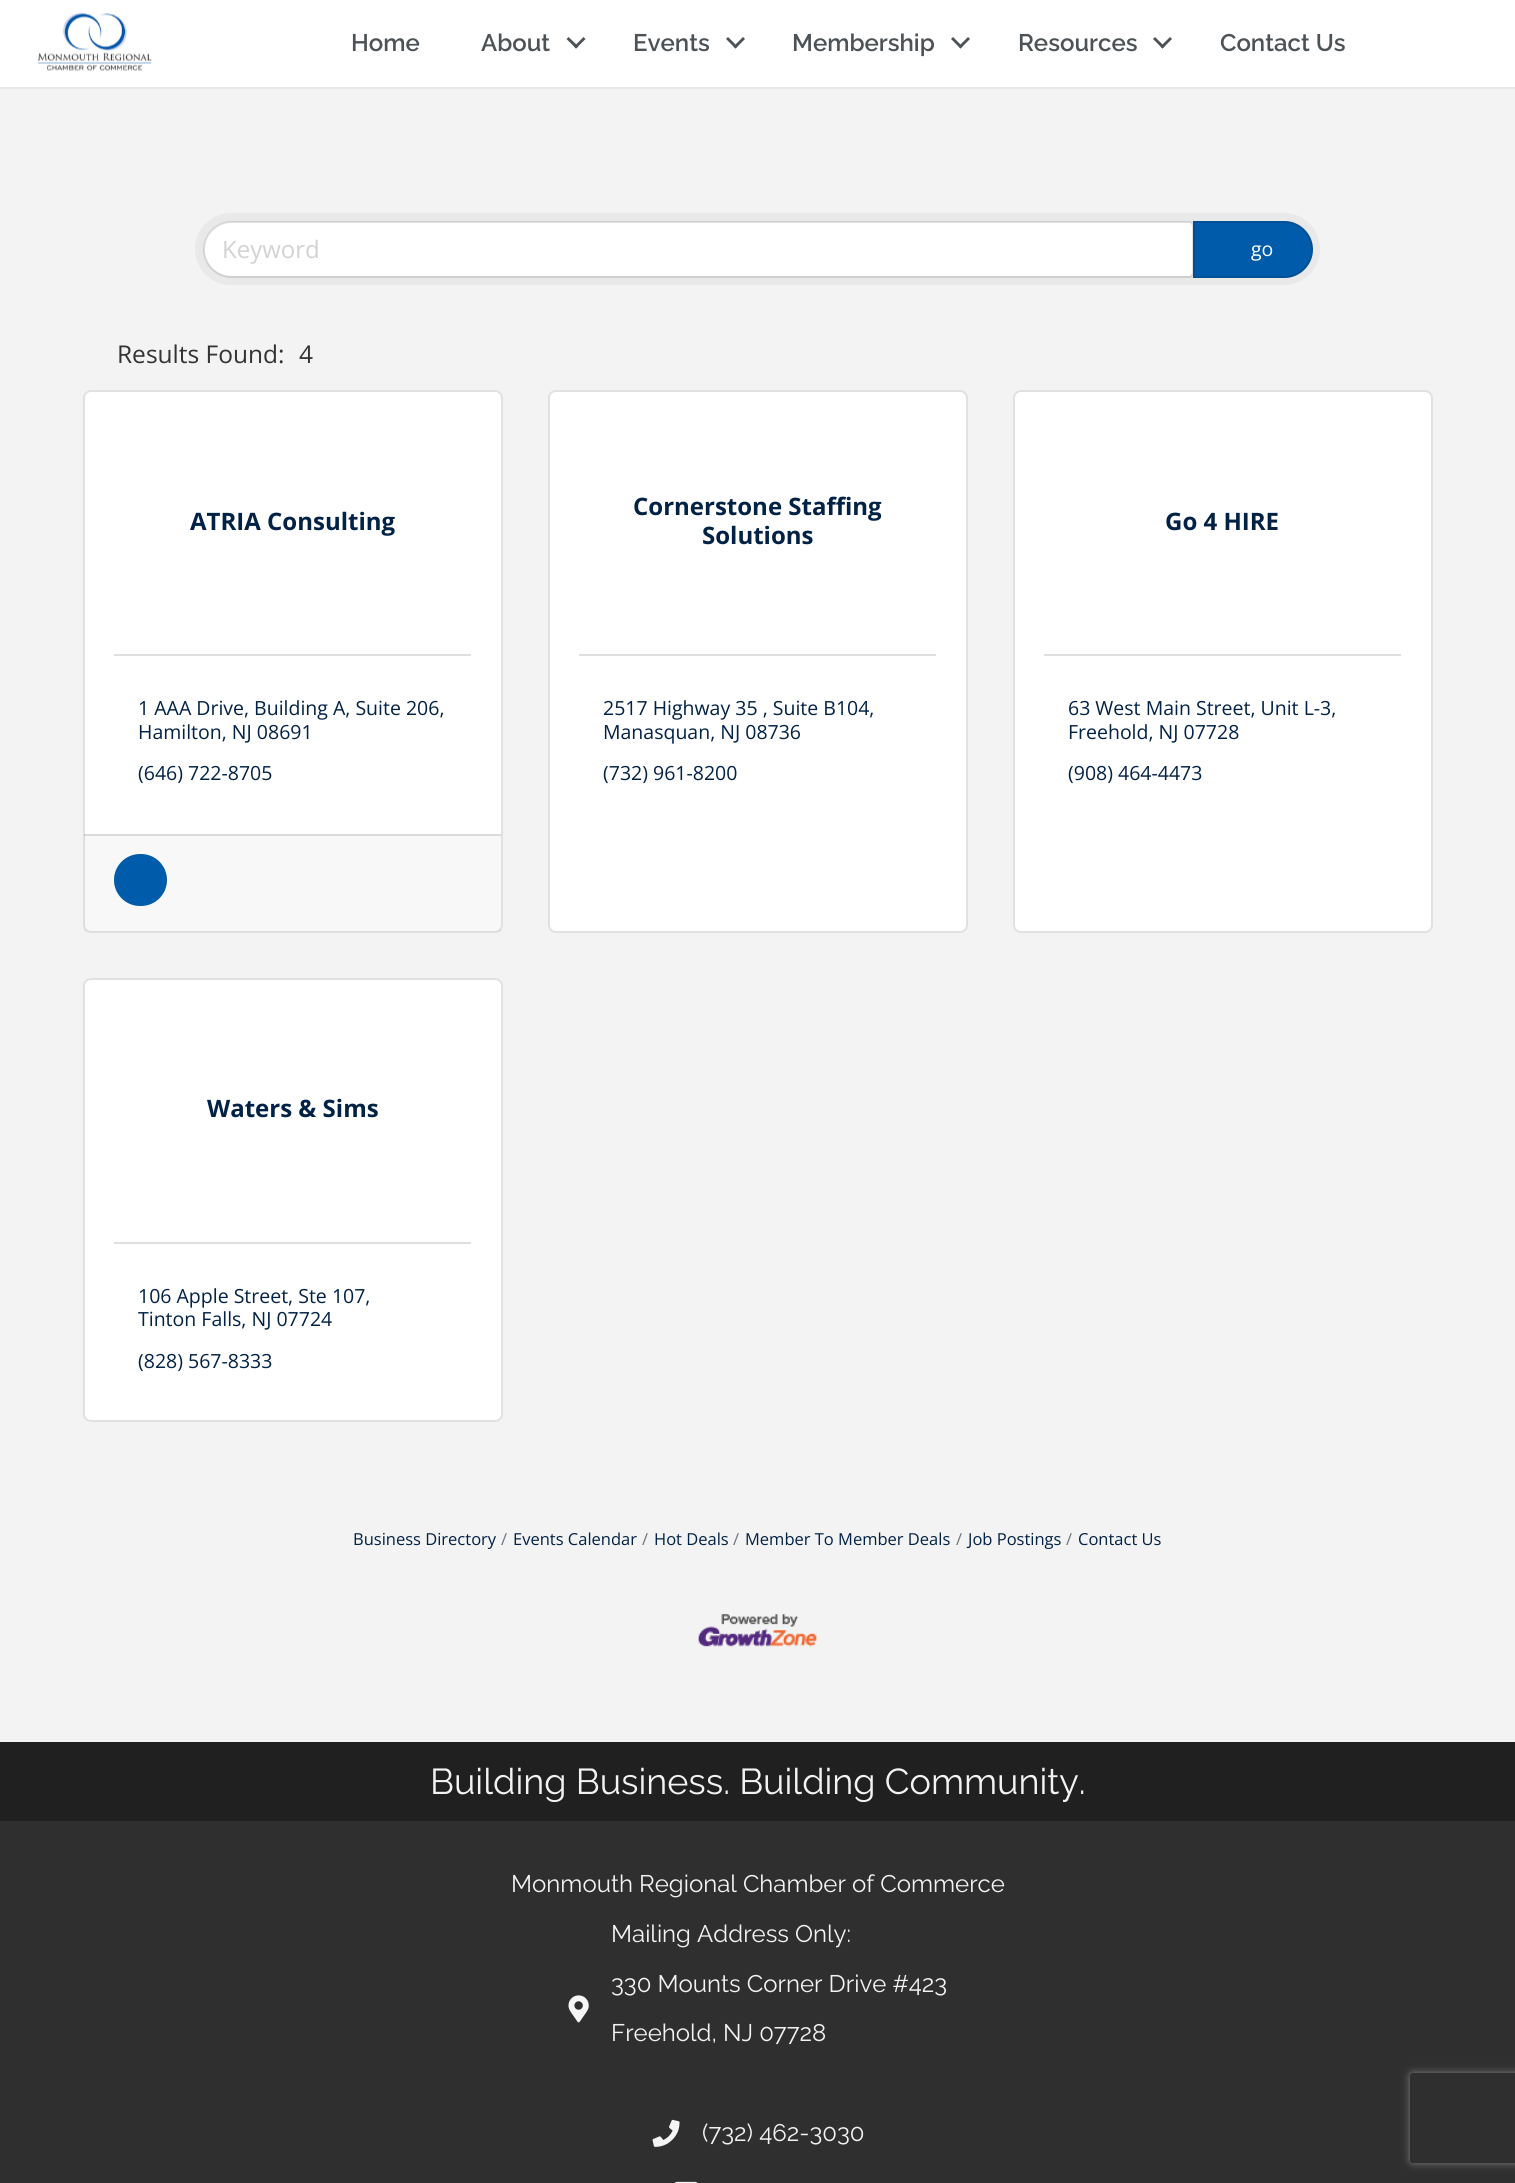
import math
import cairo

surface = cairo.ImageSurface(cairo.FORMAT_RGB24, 1515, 2183)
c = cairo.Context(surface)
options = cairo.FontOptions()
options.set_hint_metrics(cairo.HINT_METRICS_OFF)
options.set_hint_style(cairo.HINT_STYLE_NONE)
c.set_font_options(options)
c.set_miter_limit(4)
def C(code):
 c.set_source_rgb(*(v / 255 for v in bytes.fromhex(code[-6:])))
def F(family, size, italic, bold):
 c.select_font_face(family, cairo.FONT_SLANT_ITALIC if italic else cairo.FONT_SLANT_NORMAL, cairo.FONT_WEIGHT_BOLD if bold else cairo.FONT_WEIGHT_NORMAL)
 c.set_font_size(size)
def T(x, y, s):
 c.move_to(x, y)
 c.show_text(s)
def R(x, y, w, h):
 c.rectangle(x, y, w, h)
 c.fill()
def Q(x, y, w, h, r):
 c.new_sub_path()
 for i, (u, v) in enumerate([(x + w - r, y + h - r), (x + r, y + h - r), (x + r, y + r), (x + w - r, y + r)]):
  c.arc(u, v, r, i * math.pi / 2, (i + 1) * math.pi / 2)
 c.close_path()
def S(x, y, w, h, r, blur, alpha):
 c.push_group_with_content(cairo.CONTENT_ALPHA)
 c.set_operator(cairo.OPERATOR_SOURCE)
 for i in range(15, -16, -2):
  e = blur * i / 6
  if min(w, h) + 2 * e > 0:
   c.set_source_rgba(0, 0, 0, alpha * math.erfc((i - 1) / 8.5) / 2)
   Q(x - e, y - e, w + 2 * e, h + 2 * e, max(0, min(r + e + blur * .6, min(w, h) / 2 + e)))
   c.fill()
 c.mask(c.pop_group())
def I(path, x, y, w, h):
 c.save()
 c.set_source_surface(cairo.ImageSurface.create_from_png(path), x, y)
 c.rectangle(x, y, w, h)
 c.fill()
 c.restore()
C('f3f3f3')
c.paint()
C('ffffff')
R(0,0,1515,87)
C('e8e8e8')
R(0,87,1515,2)
I('1.png',38,12,114,59)
F('Raleway SemiBold',24,0,0)
C('4c5256')
T(351,51,'Home')
T(481,51,'About')
c.new_path()
c.move_to(583.5,37)
c.line_to(585.5,39)
c.line_to(576,48.5)
c.line_to(574,46.5)
c.close_path()
c.fill()
c.new_path()
c.move_to(568.5,37)
c.line_to(578.5,46.5)
c.line_to(576,48.5)
c.line_to(566.5,39)
c.close_path()
c.fill()
T(633,51,'Events')
c.new_path()
c.move_to(743,37)
c.line_to(745,39)
c.line_to(735.5,48.5)
c.line_to(733.5,46.5)
c.close_path()
c.fill()
c.new_path()
c.move_to(728,37)
c.line_to(737.5,46.5)
c.line_to(735.5,48.5)
c.line_to(726,39)
c.close_path()
c.fill()
T(792,51,'Membership')
c.new_path()
c.move_to(968,37)
c.line_to(970,39)
c.line_to(960.5,48.5)
c.line_to(958.5,46.5)
c.close_path()
c.fill()
c.new_path()
c.move_to(953,37)
c.line_to(962.5,46.5)
c.line_to(960.5,48.5)
c.line_to(951,39)
c.close_path()
c.fill()
T(1018,51,'Resources')
c.new_path()
c.move_to(1170,37)
c.line_to(1172,39)
c.line_to(1162.5,48.5)
c.line_to(1160.5,46.5)
c.close_path()
c.fill()
c.new_path()
c.move_to(1155,37)
c.line_to(1164.5,46.5)
c.line_to(1162.5,48.5)
c.line_to(1153,39)
c.close_path()
c.fill()
T(1220,51,'Contact Us')
C('e9e9e9')
Q(195,213,1125,72,36)
c.fill()
C('ffffff')
c.new_path()
c.move_to(231,222)
c.line_to(1190,222)
c.curve_to(1191.5,222,1193,223.5,1193,225)
c.line_to(1193,273)
c.curve_to(1193,274.5,1191.5,276,1190,276)
c.line_to(231,276)
c.curve_to(216,276,204,264,204,249)
c.curve_to(204,234,216,222,231,222)
c.close_path()
c.fill()
c.new_path()
c.move_to(231.5,222)
c.line_to(1189,222)
c.curve_to(1191,222,1193,224,1193,226)
c.line_to(1193,273)
c.curve_to(1193,275,1191,277,1189,277)
c.line_to(231.5,277)
c.curve_to(216.5,277,204,264.5,204,249.5)
c.curve_to(204,234.5,216.5,222,231.5,222)
c.close_path()
c.set_source_rgba(0,0,0,0.12)
c.stroke()
F('Open Sans',24,0,0)
C('d2d2d2')
T(222,258,'Keyword')
C('005baa')
c.new_path()
c.move_to(1193,221)
c.line_to(1284.5,221)
c.curve_to(1300,221,1313,234,1313,249.5)
c.curve_to(1313,265,1300,278,1284.5,278)
c.line_to(1193,278)
c.close_path()
c.fill()
c.new_path()
c.move_to(1194,222)
c.line_to(1284.5,222)
c.curve_to(1299.5,222,1312,234.5,1312,249.5)
c.curve_to(1312,264.5,1299.5,277,1284.5,277)
c.line_to(1194,277)
c.close_path()
c.set_source_rgba(0,0,0,0.12)
c.stroke()
F('Open Sans',19.5,0,0)
C('ffffff')
T(1251,256,'go')
F('Open Sans',24.5,0,0)
C('333333')
T(117,363,'Results Found:')
T(299,363,'4')
C('ffffff')
Q(83,390,420,543,8)
c.fill()
Q(84,391,418,541,7)
c.set_source_rgba(0,0,0,0.12)
c.stroke()
F('Open Sans',24,0,1)
C('012145')
T(190,530,'ATRIA Consulting')
C('dfdfdf')
R(114,654,357,2)
F('Open Sans',19.5,0,0)
C('012145')
T(138,715,'1 AAA Drive, Building A, Suite 206,')
T(138,739,'Hamilton, NJ 08691')
T(138,780,'(646) 722-8705')
c.set_source_rgba(0,0,0,0.03)
R(84,834,417,98)
c.set_source_rgba(0,0,0,0.12)
R(84,834,417,2)
C('005baa')
Q(114,854,53,52,26)
c.fill()
C('ffffff')
Q(548,390,420,543,8)
c.fill()
Q(549,391,418,541,7)
c.set_source_rgba(0,0,0,0.12)
c.stroke()
F('Open Sans',24,0,1)
C('012145')
T(633,515,'Cornerstone Staffing')
T(702,544,'Solutions')
C('dfdfdf')
R(579,654,357,2)
F('Open Sans',19.5,0,0)
C('012145')
T(603,715,'2517 Highway 35 , Suite B104,')
T(603,739,'Manasquan, NJ 08736')
T(603,780,'(732) 961-8200')
C('ffffff')
Q(1013,390,420,543,8)
c.fill()
Q(1014,391,418,541,7)
c.set_source_rgba(0,0,0,0.12)
c.stroke()
F('Open Sans',24,0,1)
C('012145')
T(1165,530,'Go 4 HIRE')
C('dfdfdf')
R(1044,654,357,2)
F('Open Sans',19.5,0,0)
C('012145')
T(1068,715,'63 West Main Street, Unit L-3,')
T(1068,739,'Freehold, NJ 07728')
T(1068,780,'(908) 464-4473')
C('ffffff')
Q(83,978,420,444,8)
c.fill()
Q(84,979,418,442,7)
c.set_source_rgba(0,0,0,0.12)
c.stroke()
F('Open Sans',24,0,1)
C('012145')
T(207,1117,'Waters & Sims')
C('dfdfdf')
R(114,1242,357,2)
F('Open Sans',19.5,0,0)
C('012145')
T(138,1303,'106 Apple Street, Ste 107,')
T(138,1326,'Tinton Falls, NJ 07724')
T(138,1368,'(828) 567-8333')
F('Open Sans',16.5,0,0)
T(353,1545,'Business Directory')
C('6c757d')
T(501,1545,'/')
C('012145')
T(513,1545,'Events Calendar')
C('6c757d')
T(642,1545,'/')
C('012145')
T(654,1545,'Hot Deals')
C('6c757d')
T(733,1545,'/')
C('012145')
T(745,1545,'Member To Member Deals')
C('6c757d')
T(956,1545,'/')
C('012145')
T(968,1545,'Job Postings')
C('6c757d')
T(1066,1545,'/')
C('012145')
T(1078,1545,'Contact Us')
I('2.png',698,1614,119,33)
C('202020')
R(0,1742,1515,79)
F('Raleway',36,0,0)
C('f3f3f3')
T(430,1794,'Building Business. Building Community.')
C('2f2f2f')
R(0,1821,1515,362)
F('Raleway',24,0,0)
C('f3f3f3')
T(511,1892,'Monmouth Regional Chamber of Commerce')
I('3.png',568,1995,21,28)
T(611,1942,'Mailing Address Only:')
T(611,1992,'330 Mounts Corner Drive #423')
T(611,2041,'Freehold, NJ 07728')
I('4.png',652,2119,28,28)
T(702,2141,'(732) 462-3030')
I('5.png',675,2181,23,2)
c.save()
c.set_fill_rule(cairo.FILL_RULE_EVEN_ODD)
c.new_path()
c.move_to(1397,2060)
c.line_to(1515,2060)
c.line_to(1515,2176)
c.line_to(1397,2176)
c.close_path()
c.move_to(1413,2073)
c.line_to(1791,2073)
c.curve_to(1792.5,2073,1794,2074.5,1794,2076)
c.line_to(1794,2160)
c.curve_to(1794,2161.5,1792.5,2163,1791,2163)
c.line_to(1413,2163)
c.curve_to(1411.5,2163,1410,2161.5,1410,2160)
c.line_to(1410,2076)
c.curve_to(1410,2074.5,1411.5,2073,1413,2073)
c.close_path()
c.clip()
C('808080')
S(1410,2073,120,90,3,4,1)
c.restore()
surface.write_to_png('o.png')
